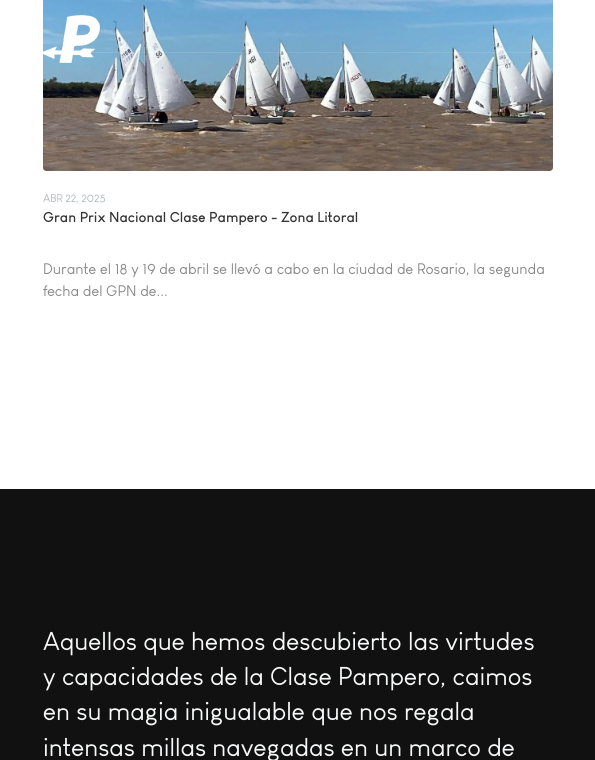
import math
import cairo

surface = cairo.ImageSurface(cairo.FORMAT_RGB24, 595, 760)
c = cairo.Context(surface)
options = cairo.FontOptions()
options.set_hint_metrics(cairo.HINT_METRICS_OFF)
options.set_hint_style(cairo.HINT_STYLE_NONE)
c.set_font_options(options)
c.set_miter_limit(4)
def C(code):
 c.set_source_rgb(*(v / 255 for v in bytes.fromhex(code[-6:])))
def F(family, size, italic, bold):
 c.select_font_face(family, cairo.FONT_SLANT_ITALIC if italic else cairo.FONT_SLANT_NORMAL, cairo.FONT_WEIGHT_BOLD if bold else cairo.FONT_WEIGHT_NORMAL)
 c.set_font_size(size)
def T(x, y, s):
 c.move_to(x, y)
 c.show_text(s)
def R(x, y, w, h):
 c.rectangle(x, y, w, h)
 c.fill()
def I(path, x, y, w, h):
 c.save()
 c.set_source_surface(cairo.ImageSurface.create_from_png(path), x, y)
 c.rectangle(x, y, w, h)
 c.fill()
 c.restore()
C('ffffff')
c.paint()
I('2.png',43,0,510,171)
c.set_source_rgba(1,1,1,0.1)
R(43,52,510,1)
I('1.png',43,15,57,48)
F('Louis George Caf',11,0,0)
C('adb5bd')
T(43,202,'ABR 22, 2025')
F('Louis George Caf',14.1,0,1)
C('333333')
T(43,222,'Gran Prix Nacional Clase Pampero - Zona Litoral')
F('Louis George Caf',15,0,0)
C('888888')
T(43,274,'Durante el 18 y 19 de abril se llevó a cabo en la ciudad de Rosario, la segunda')
T(43,296,'fecha del GPN de...')
C('111111')
R(0,489,595,271)
F('Louis George Caf',25.3,0,0)
C('f8f9fa')
T(43,650,'Aquellos que hemos descubierto las virtudes')
T(43,685,'y capacidades de la Clase Pampero, caimos')
T(43,720,'en su magia inigualable que nos regala')
T(43,756,'intensas millas navegadas en un marco de')
surface.write_to_png('o.png')
